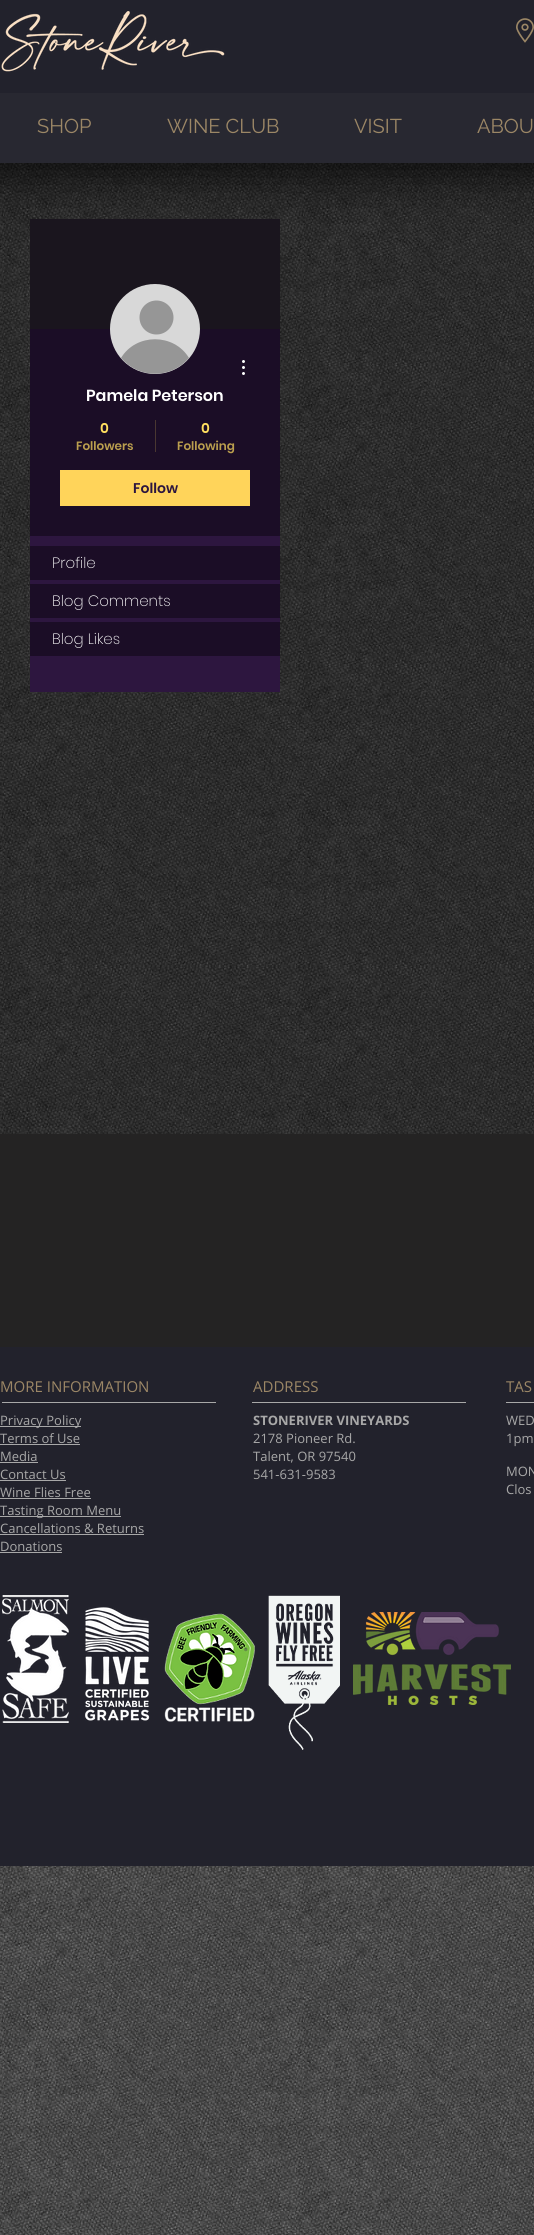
import math
import cairo

surface = cairo.ImageSurface(cairo.FORMAT_RGB24, 534, 2235)
c = cairo.Context(surface)
options = cairo.FontOptions()
options.set_hint_metrics(cairo.HINT_METRICS_OFF)
options.set_hint_style(cairo.HINT_STYLE_NONE)
c.set_font_options(options)
c.set_miter_limit(4)
def C(code):
 c.set_source_rgb(*(v / 255 for v in bytes.fromhex(code[-6:])))
def F(family, size, italic, bold):
 c.select_font_face(family, cairo.FONT_SLANT_ITALIC if italic else cairo.FONT_SLANT_NORMAL, cairo.FONT_WEIGHT_BOLD if bold else cairo.FONT_WEIGHT_NORMAL)
 c.set_font_size(size)
def T(x, y, s):
 c.move_to(x, y)
 c.show_text(s)
def R(x, y, w, h):
 c.rectangle(x, y, w, h)
 c.fill()
def Q(x, y, w, h, r):
 c.new_sub_path()
 for i, (u, v) in enumerate([(x + w - r, y + h - r), (x + r, y + h - r), (x + r, y + r), (x + w - r, y + r)]):
  c.arc(u, v, r, i * math.pi / 2, (i + 1) * math.pi / 2)
 c.close_path()
def S(x, y, w, h, r, blur, alpha):
 c.push_group_with_content(cairo.CONTENT_ALPHA)
 c.set_operator(cairo.OPERATOR_SOURCE)
 for i in range(15, -16, -2):
  e = blur * i / 6
  if min(w, h) + 2 * e > 0:
   c.set_source_rgba(0, 0, 0, alpha * math.erfc((i - 1) / 8.5) / 2)
   Q(x - e, y - e, w + 2 * e, h + 2 * e, max(0, min(r + e + blur * .6, min(w, h) / 2 + e)))
   c.fill()
 c.mask(c.pop_group())
def I(path, x, y, w, h):
 c.save()
 c.set_source_surface(cairo.ImageSurface.create_from_png(path), x, y)
 c.rectangle(x, y, w, h)
 c.fill()
 c.restore()
C('ffffff')
c.paint()
I('9.png',0,163,534,2072)
c.set_source_rgba(0,0,0,0.39)
R(0,163,534,971)
C('1a151e')
R(30,219,250,110)
C('000000')
S(-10,-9,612,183,0,22.5,.76)
C('282831')
R(0,93,534,70)
C('22222c')
R(0,0,534,93)
I('1.png',1,11,224,61)
I('2.png',516,18,18,25)
F('Raleway',20,0,0)
C('9c8766')
T(37,133,'SHOP')
T(167,133,'WINE CLUB')
T(354,133,'VISIT')
T(477,133,'ABOU')
C('1b0d26')
R(30,329,250,207)
C('d8d8d8')
c.new_path()
c.arc(155,329,45,0,2 * math.pi)
c.fill()
C('969696')
c.arc(156.5,317.5,17,0,2 * math.pi)
c.fill()
c.new_path()
c.move_to(189,358)
c.curve_to(171,379,139,379,121,358)
c.curve_to(136,333,174,333,189,358)
c.close_path()
c.fill()
I('3.png',242,360,3,15)
F('Poppins SemiBold',16,0,0)
C('ffffff')
T(86,401,'Pamela Peterson')
F('Poppins SemiBold',14,0,0)
C('ffde5f')
T(100,433,'0')
F('Poppins SemiBold',12,0,0)
C('bb9f4e')
T(76,450,'Followers')
C('493731')
R(155,420,1,32)
F('Poppins SemiBold',14,0,0)
C('ffde5f')
T(201,433,'0')
F('Poppins SemiBold',12,0,0)
C('bb9f4e')
T(177,450,'Following')
C('ffd45a')
R(60,470,190,36)
F('Poppins SemiBold',14,0,0)
C('2d163f')
T(133,493,'Follow')
R(30,536,250,156)
C('1b0d26')
R(30,546,250,34)
F('Poppins ExtraLight',15,0,0)
C('ffffff')
T(52,568,'Profile')
C('1b0d26')
R(30,584,250,34)
C('ffffff')
T(52,606,'Blog Comments')
C('1b0d26')
R(30,622,250,34)
C('ffffff')
T(52,644,'Blog Likes')
C('22222c')
R(0,1347,534,519)
C('242323')
R(0,1134,534,213)
F('Open Sans',15,0,0)
C('9c8766')
T(0,1392,'MORE INFORMATION')
C('a8a8a8')
R(0,1426,81,1)
F('Open Sans',13,0,0)
T(0,1425,'Privacy Policy')
T(0,1443,'Terms of Use')
R(0,1444,80,1)
T(0,1461,'Media')
R(0,1462,38,1)
T(0,1479,'Contact Us')
R(0,1480,66,1)
T(0,1497,'Wine Flies Free')
R(0,1498,91,1)
R(0,1516,121,1)
T(0,1515,'Tasting Room Menu')
T(0,1533,'Cancellations & Returns')
R(0,1534,144,1)
T(0,1551,'Donations')
R(0,1552,62,1)
F('Open Sans',15,0,0)
C('9c8766')
T(253,1392,'ADDRESS')
F('Open Sans',13,0,1)
C('a8a8a8')
T(253,1425,'STONERIVER VINEYARDS')
F('Open Sans',13,0,0)
T(253,1443,'2178 Pioneer Rd.')
T(253,1461,'Talent, OR 97540')
T(253,1479,'541-631-9583')
F('Open Sans',15,0,0)
C('9c8766')
T(506,1392,'TAS')
F('Open Sans',13,0,0)
C('a8a8a8')
T(506,1425,'WED')
T(506,1443,'1pm')
T(506,1476,'MON')
T(506,1494,'Clos')
R(2,1402,214,1)
R(252,1402,214,1)
R(506,1402,28,1)
I('4.png',2,1595,67,128)
I('5.png',85,1607,65,114)
I('6.png',164,1613,91,109)
I('7.png',268,1595,72,155)
I('8.png',353,1612,158,93)
surface.write_to_png('o.png')
